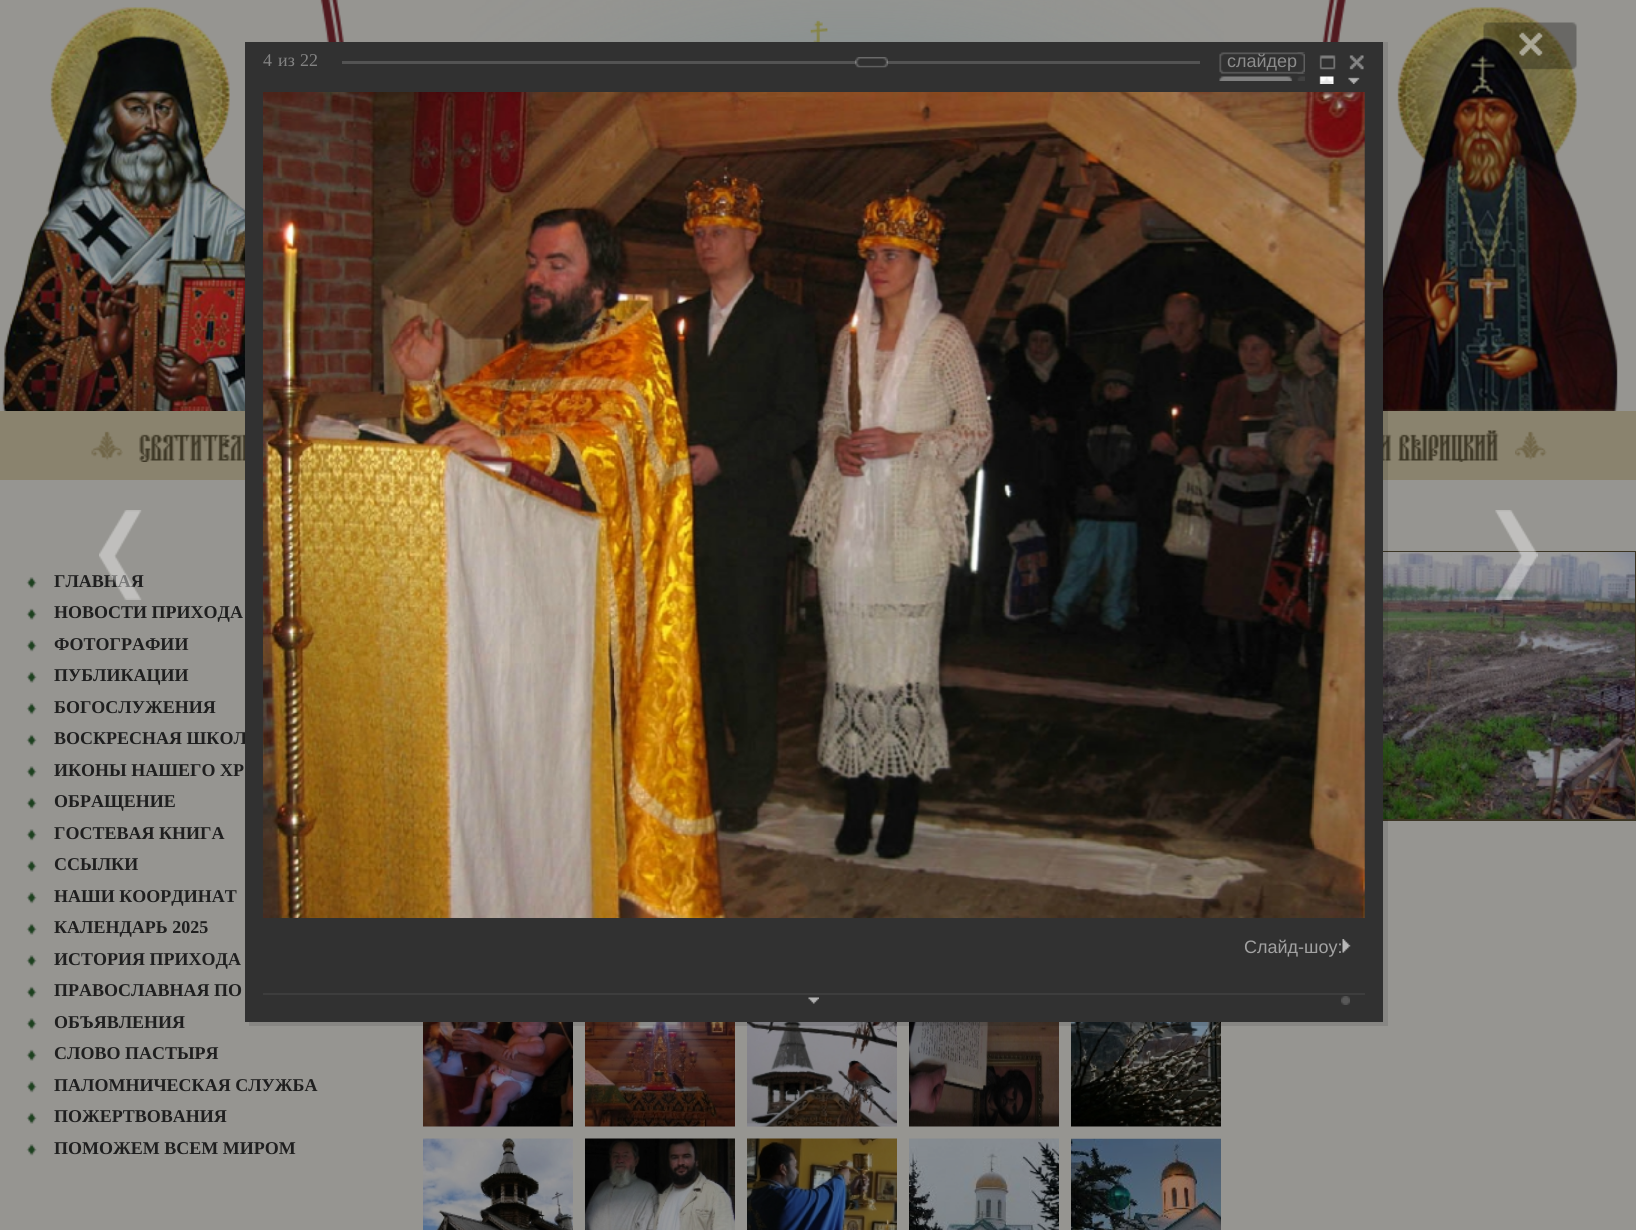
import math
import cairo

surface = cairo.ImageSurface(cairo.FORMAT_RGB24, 1636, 1230)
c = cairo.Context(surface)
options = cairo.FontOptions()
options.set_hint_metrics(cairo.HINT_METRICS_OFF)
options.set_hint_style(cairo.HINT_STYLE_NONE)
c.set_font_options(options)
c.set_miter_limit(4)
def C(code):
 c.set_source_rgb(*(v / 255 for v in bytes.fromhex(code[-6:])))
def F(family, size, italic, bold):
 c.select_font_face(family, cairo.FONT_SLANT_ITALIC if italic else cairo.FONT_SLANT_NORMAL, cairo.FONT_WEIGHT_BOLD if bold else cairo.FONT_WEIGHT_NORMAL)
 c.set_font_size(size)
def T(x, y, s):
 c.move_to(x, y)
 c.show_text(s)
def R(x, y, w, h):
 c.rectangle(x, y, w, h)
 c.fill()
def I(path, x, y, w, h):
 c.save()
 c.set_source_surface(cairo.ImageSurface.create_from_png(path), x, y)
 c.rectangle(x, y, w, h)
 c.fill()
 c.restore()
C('969591')
c.paint()
I('1.png',1,7,244,404)
I('2.png',320,0,24,42)
I('3.png',470,0,754,42)
I('4.png',1322,0,24,42)
I('5.png',1383,7,235,404)
C('8a836e')
R(0,411,1636,69)
I('6.png',91,431,32,30)
I('7.png',139,434,106,28)
I('8.png',1383,430,116,32)
I('9.png',1515,431,32,29)
I('10.png',26,577,11,12)
F('Liberation Serif',18,0,1)
C('1f1f1f')
T(54,587,'ГЛАВНАЯ')
I('11.png',26,608,11,12)
T(54,618,'НОВОСТИ ПРИХОДА')
I('10.png',26,640,11,12)
T(54,650,'ФОТОГРАФИИ')
I('11.png',26,671,11,12)
T(54,681,'ПУБЛИКАЦИИ')
I('10.png',26,703,11,12)
T(54,713,'БОГОСЛУЖЕНИЯ')
I('11.png',26,734,11,12)
T(54,744,'ВОСКРЕСНАЯ ШКОЛ')
I('10.png',26,766,11,12)
T(54,776,'ИКОНЫ НАШЕГО ХР')
I('11.png',26,797,11,12)
T(54,807,'ОБРАЩЕНИЕ')
I('10.png',26,829,11,12)
T(54,839,'ГОСТЕВАЯ КНИГА')
I('11.png',26,860,11,12)
T(54,870,'ССЫЛКИ')
I('10.png',26,892,11,12)
T(54,902,'НАШИ КООРДИНАТ')
I('11.png',26,923,11,12)
T(54,933,'КАЛЕНДАРЬ 2025')
I('10.png',26,955,11,12)
T(54,965,'ИСТОРИЯ ПРИХОДА')
I('11.png',26,986,11,12)
T(54,996,'ПРАВОСЛАВНАЯ ПО')
I('10.png',26,1018,11,12)
T(54,1028,'ОБЪЯВЛЕНИЯ')
I('11.png',26,1049,11,12)
T(54,1059,'СЛОВО ПАСТЫРЯ')
I('10.png',26,1081,11,12)
T(54,1091,'ПАЛОМНИЧЕСКАЯ СЛУЖБА')
I('11.png',26,1112,11,12)
T(54,1122,'ПОЖЕРТВОВАНИЯ')
I('10.png',26,1144,11,12)
T(54,1154,'ПОМОЖЕМ ВСЕМ МИРОМ')
I('12.png',423,1022,150,105)
I('13.png',585,1022,150,105)
I('14.png',747,1022,150,105)
I('15.png',909,1022,150,105)
I('16.png',1071,1022,150,105)
I('17.png',423,1138,150,92)
I('18.png',585,1138,150,92)
I('19.png',747,1138,150,92)
I('20.png',909,1138,150,92)
I('21.png',1071,1138,150,92)
c.rectangle(1278,552,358,268)
C('3b3524')
c.stroke()
I('22.png',1383,552,252,267)
I('23.png',99,510,43,90)
c.set_source_rgba(0,0,0,0.1)
R(249,42,1139,984)
C('313131')
R(245,42,1138,980)
F('Liberation Serif',18,0,0)
C('838383')
T(263,66,'4')
T(278,66,'из')
T(300,66,'22')
C('535353')
R(342,61,858,3)
I('24.png',855,57,33,11)
I('25.png',1219,52,86,29)
F('Liberation Sans',18,0,0)
C('8c8c8c')
T(1227,67,'слайдер')
I('26.png',1297,52,8,22)
I('27.png',1319,55,17,29)
I('28.png',1348,55,16,29)
I('29.png',263,92,1102,826)
C('3d3d3d')
R(263,993,1102,2)
C('a2a2a2')
T(1244,953,'Слайд-шоу:')
I('30.png',1342,939,9,14)
I('31.png',808,997,11,7)
I('32.png',1341,996,9,9)
I('33.png',1483,22,94,48)
I('34.png',1495,510,43,90)
surface.write_to_png('o.png')
